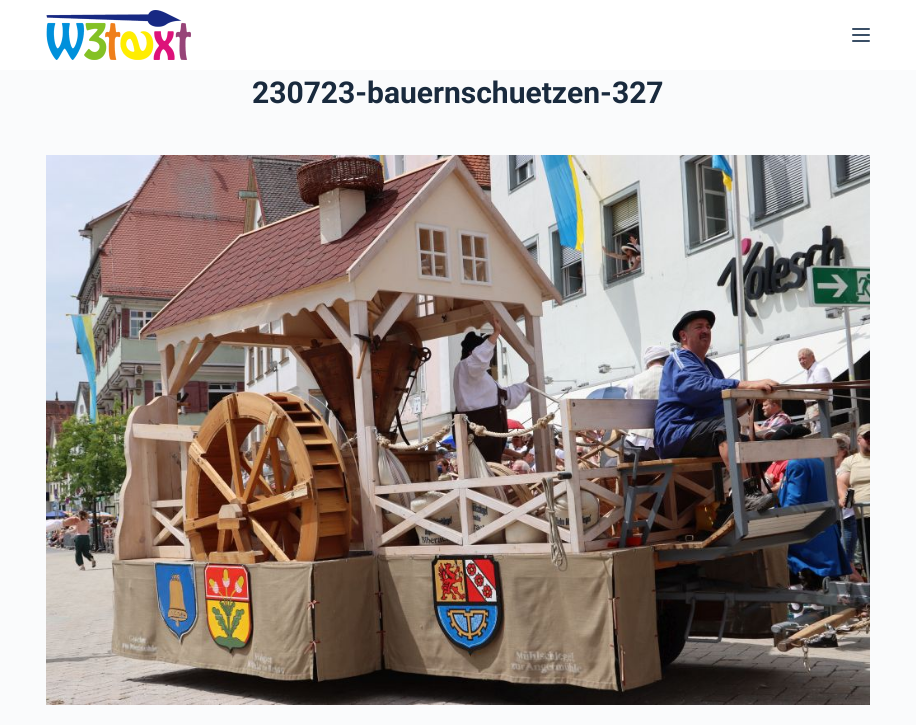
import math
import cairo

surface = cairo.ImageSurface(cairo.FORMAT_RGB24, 916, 725)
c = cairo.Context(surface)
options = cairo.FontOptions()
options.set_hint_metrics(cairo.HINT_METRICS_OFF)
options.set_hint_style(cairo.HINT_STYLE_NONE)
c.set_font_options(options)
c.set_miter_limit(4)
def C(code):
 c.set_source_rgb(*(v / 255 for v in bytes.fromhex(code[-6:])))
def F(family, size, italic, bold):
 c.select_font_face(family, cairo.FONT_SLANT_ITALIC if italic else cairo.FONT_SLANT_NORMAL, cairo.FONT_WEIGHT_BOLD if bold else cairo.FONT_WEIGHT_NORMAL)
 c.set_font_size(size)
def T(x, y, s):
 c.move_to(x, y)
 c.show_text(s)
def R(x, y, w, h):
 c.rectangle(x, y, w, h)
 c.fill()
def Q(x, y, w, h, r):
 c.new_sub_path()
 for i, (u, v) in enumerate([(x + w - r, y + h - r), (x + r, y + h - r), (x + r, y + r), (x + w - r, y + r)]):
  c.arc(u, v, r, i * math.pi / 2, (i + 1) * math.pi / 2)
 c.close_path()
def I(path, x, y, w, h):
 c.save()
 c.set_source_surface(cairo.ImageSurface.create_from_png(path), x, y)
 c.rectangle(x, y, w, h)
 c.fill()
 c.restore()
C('fafbfc')
c.paint()
C('ffffff')
R(0,0,916,70)
I('1.png',46,10,145,50)
C('3a4f66')
Q(852,28,18,2,1)
c.fill()
Q(852,34,18,2,1)
c.fill()
Q(852,40,18,2,1)
c.fill()
F('Roboto',30,0,1)
C('192a3d')
T(252,103,'230723-bauernschuetzen-327')
I('2.png',46,155,824,550)
surface.write_to_png('o.png')
